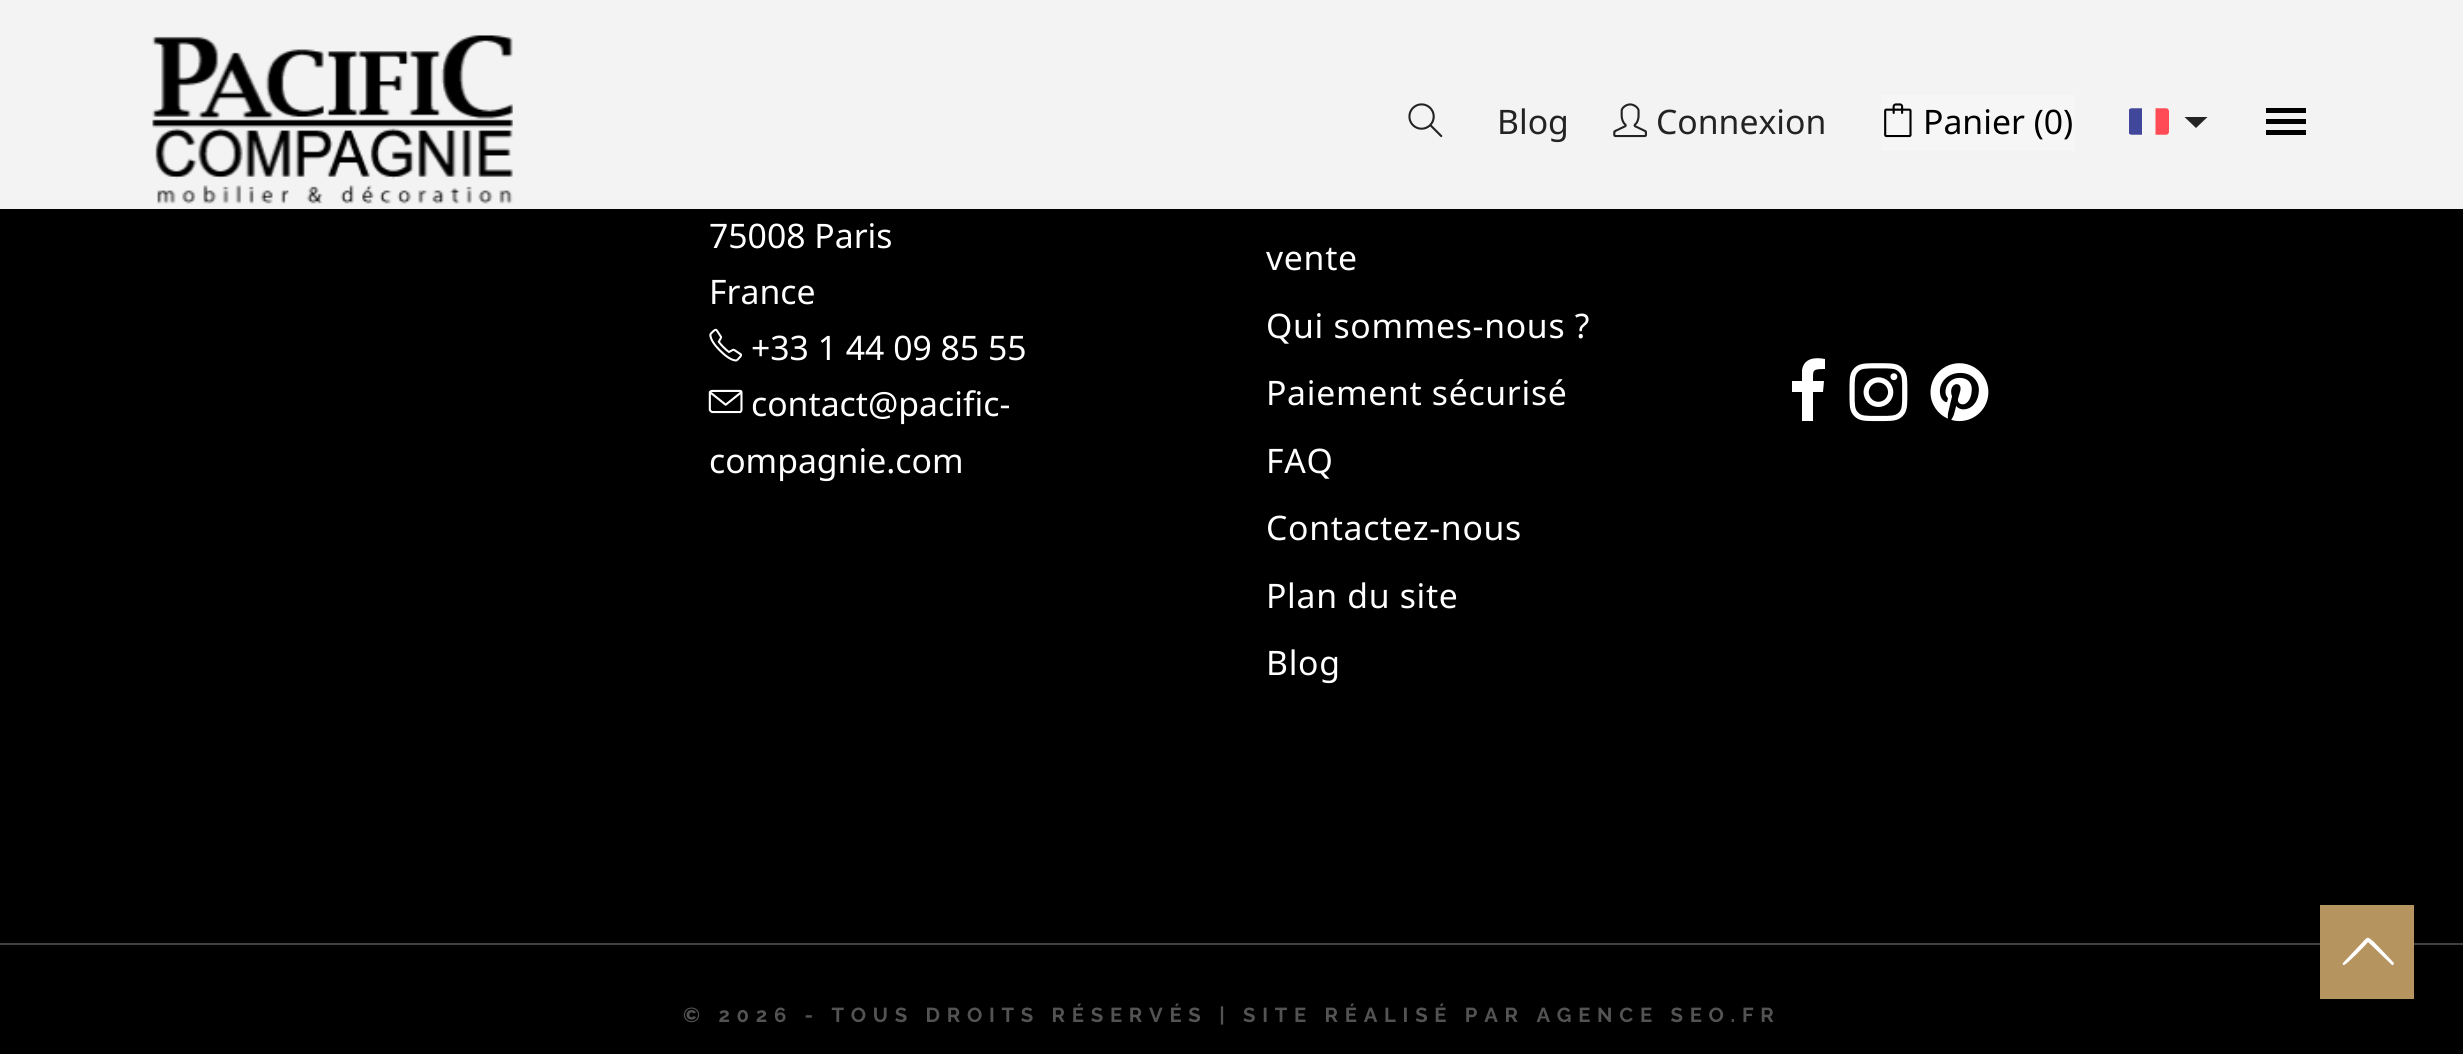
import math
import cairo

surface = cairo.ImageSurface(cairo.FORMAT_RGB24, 2463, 1054)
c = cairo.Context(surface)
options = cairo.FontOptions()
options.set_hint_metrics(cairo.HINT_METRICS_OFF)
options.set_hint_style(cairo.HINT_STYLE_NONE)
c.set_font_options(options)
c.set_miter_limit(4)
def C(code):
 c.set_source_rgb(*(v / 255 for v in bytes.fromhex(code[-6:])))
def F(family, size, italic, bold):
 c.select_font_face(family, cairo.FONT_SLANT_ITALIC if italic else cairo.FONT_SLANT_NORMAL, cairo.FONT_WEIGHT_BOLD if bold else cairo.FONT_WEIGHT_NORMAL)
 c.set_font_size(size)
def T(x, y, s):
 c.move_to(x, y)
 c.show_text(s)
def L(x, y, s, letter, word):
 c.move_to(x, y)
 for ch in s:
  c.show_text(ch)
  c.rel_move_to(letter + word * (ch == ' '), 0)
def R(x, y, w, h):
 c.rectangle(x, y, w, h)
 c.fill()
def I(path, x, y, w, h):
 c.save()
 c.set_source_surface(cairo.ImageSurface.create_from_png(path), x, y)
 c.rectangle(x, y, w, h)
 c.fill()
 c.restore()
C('000000')
c.paint()
C('f3f3f3')
R(0,0,2463,209)
I('1.png',152,35,361,169)
I('2.png',1408,103,35,35)
F('Noto Sans',33.75,0,0)
C('232323')
T(1497,134,'Blog')
I('3.png',1613,103,34,35)
T(1656,134,'Connexion')
C('f6f6f6')
R(1881,95,194,56)
I('4.png',1884,103,28,35)
C('000000')
T(1923,134,'Panier (0)')
I('5.png',2129,108,40,27)
C('232323')
c.new_path()
c.move_to(2184.5,117)
c.line_to(2207.5,117)
c.line_to(2196,128)
c.close_path()
c.fill()
C('000000')
c.new_path()
c.move_to(2266,108)
c.line_to(2306,108)
c.line_to(2306,113)
c.line_to(2266,113)
c.close_path()
c.move_to(2266,124)
c.line_to(2266,119)
c.line_to(2306,119)
c.line_to(2306,124)
c.close_path()
c.move_to(2266,135)
c.line_to(2266,130)
c.line_to(2306,130)
c.line_to(2306,135)
c.close_path()
c.fill()
C('ffffff')
T(709,248,'75008 Paris')
T(709,304,'France')
I('6.png',709,328,33,34)
T(751,360,'+33 1 44 09 85 55')
I('7.png',708,389,35,25)
T(751,416,'contact@pacific-')
T(709,473,'compagnie.com')
L(1266,270,'vente',.7,0)
L(1266,338,'Qui sommes-nous ?',.7,0)
L(1266,405,'Paiement sécurisé',.7,0)
L(1266,473,'FAQ',.7,0)
L(1266,540,'Contactez-nous',.7,0)
L(1266,608,'Plan du site',.7,0)
L(1266,675,'Blog',.7,0)
c.new_path()
c.move_to(1825,359)
c.curve_to(1815,357,1804,358,1802,370)
c.line_to(1802,381)
c.line_to(1792,381)
c.line_to(1792,392)
c.line_to(1802,392)
c.line_to(1802,421)
c.line_to(1813,421)
c.line_to(1813,392)
c.line_to(1823,392)
c.line_to(1824,381)
c.line_to(1813,381)
c.curve_to(1813,370,1812,369,1825,369)
c.close_path()
c.fill()
I('8.png',1849,363,59,59)
I('9.png',1930,363,59,59)
C('414141')
R(0,943,2463,2)
F('Raleway',20.25,0,1)
C('545353')
L(683,1022,'© 2026 - TOUS DROITS RÉSERVÉS | SITE RÉALISÉ PAR AGENCE SEO.FR',6.75,0)
C('b59460')
R(2320,905,94,94)
C('ffffff')
c.new_path()
c.move_to(2343,963)
c.curve_to(2342,964,2343,965,2344,965)
c.curve_to(2346,965,2366,945,2368,942)
c.line_to(2392,965)
c.curve_to(2393,966,2395,963,2393,962)
c.line_to(2374,942)
c.curve_to(2366,935,2368,937,2359,946)
c.close_path()
c.fill()
surface.write_to_png('o.png')
